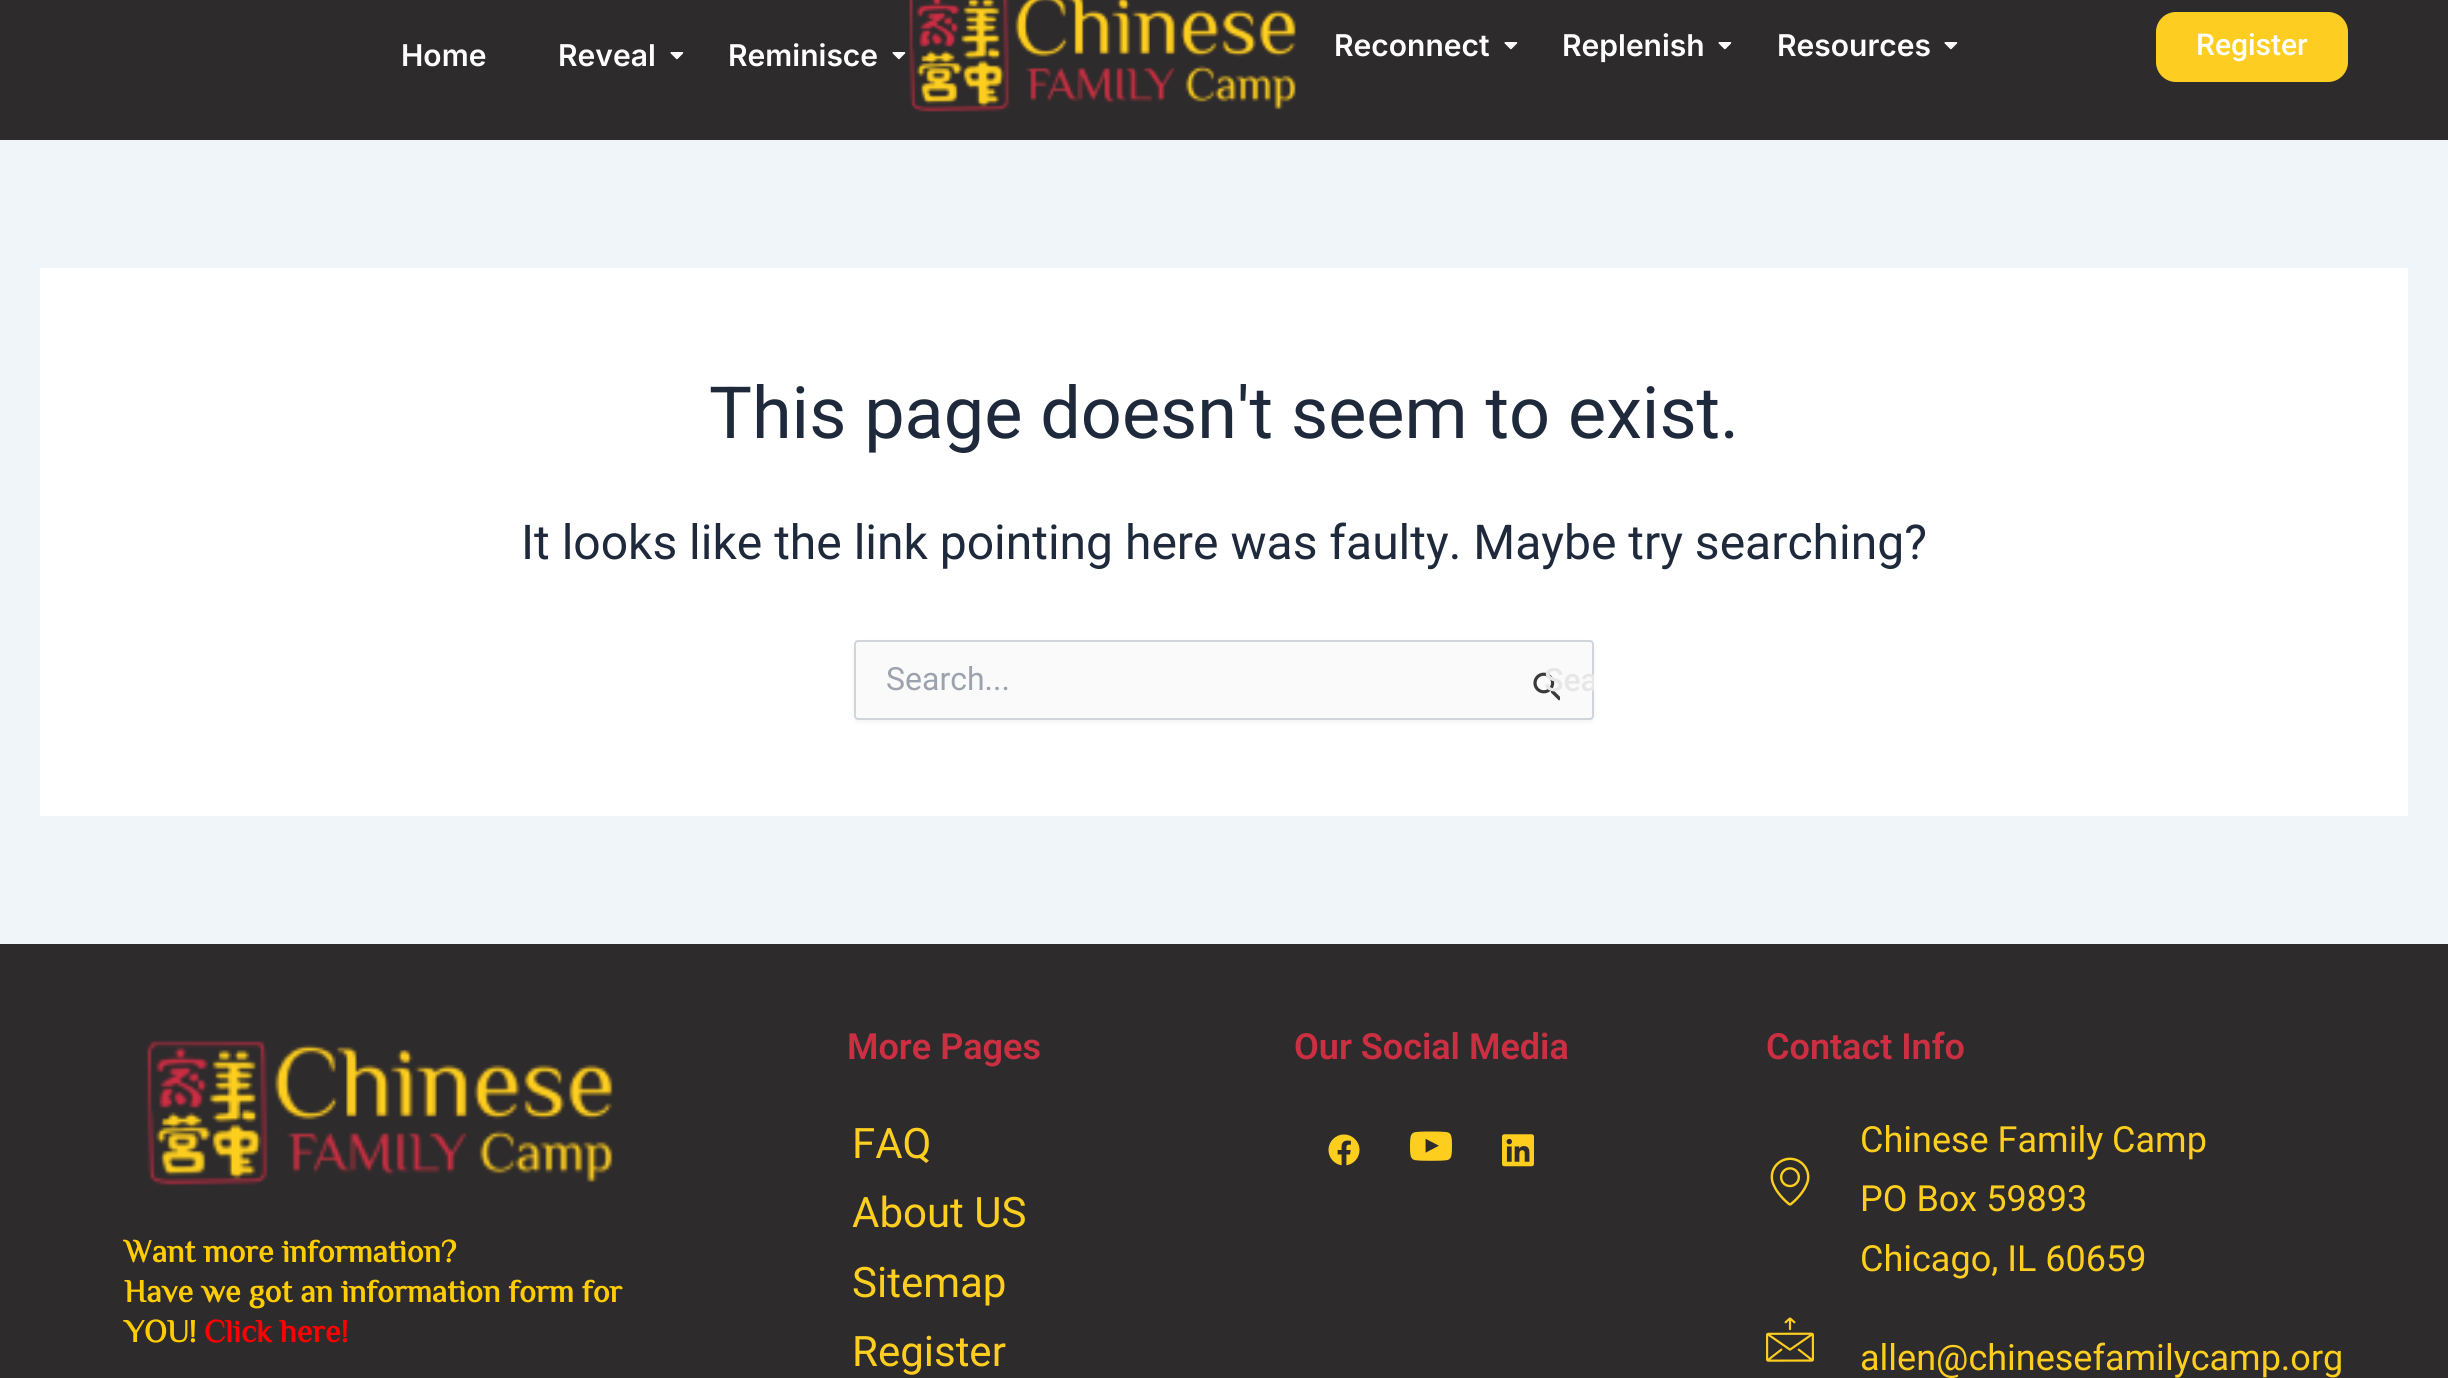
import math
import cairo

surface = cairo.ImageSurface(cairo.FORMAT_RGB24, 2448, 1378)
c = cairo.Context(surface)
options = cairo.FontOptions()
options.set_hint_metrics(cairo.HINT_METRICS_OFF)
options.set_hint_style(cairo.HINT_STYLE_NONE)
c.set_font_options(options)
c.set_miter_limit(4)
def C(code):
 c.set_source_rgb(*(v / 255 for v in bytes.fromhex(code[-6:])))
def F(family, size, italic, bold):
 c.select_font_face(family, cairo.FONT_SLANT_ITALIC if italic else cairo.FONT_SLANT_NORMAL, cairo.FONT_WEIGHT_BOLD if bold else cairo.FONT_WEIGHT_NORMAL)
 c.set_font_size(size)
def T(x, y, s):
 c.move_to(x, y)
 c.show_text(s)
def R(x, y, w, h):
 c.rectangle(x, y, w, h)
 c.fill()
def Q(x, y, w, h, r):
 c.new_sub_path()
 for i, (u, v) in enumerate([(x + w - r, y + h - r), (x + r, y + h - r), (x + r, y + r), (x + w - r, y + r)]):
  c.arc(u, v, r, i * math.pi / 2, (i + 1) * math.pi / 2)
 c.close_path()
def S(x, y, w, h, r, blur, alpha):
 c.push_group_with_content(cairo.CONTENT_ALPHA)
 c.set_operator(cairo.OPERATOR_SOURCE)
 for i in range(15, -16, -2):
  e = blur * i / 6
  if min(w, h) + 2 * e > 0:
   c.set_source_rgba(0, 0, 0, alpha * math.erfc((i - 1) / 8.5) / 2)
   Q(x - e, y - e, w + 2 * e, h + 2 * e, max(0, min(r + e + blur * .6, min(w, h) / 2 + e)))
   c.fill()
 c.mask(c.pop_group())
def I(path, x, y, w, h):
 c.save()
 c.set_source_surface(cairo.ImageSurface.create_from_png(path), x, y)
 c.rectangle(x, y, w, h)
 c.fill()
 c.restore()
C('f0f5fa')
c.paint()
C('2e2b2d')
R(0,0,2448,140)
F('Inter SemiBold',30,0,0)
C('ffffff')
T(401,66,'Home')
T(558,66,'Reveal')
I('1.png',670,52,14,8)
T(728,66,'Reminisce')
I('1.png',892,52,14,8)
I('2.png',909,0,387,112)
T(1334,56,'Reconnect')
I('1.png',1504,42,14,8)
T(1562,56,'Replenish')
I('1.png',1718,42,14,8)
T(1777,56,'Resources')
I('1.png',1944,42,14,8)
C('fecd21')
Q(2156,12,192,70,20)
c.fill()
F('Roboto Medium',30,0,0)
C('ffffff')
T(2196,55,'Register')
R(40,268,2368,548)
F('Roboto',72,0,0)
C('1e293b')
T(709,438,'This page doesn\'t seem to exist.')
F('Roboto',48,0,0)
T(521,559,'It looks like the link pointing here was faulty. Maybe try searching?')
C('000000')
S(854,642,740,80,4,2,.05)
C('fafafa')
Q(855,641,738,78,3)
c.fill_preserve()
C('d1d5db')
c.stroke()
F('Roboto',32,0,0)
C('9ca3af')
T(886,690,'Search...')
I('3.png',1533,672,27,29)
c.save()
Q(1504,640,90,84,4)
c.clip()
F('Roboto Medium',32,0,0)
C('e7e7e7')
T(1544,691,'Sea')
c.restore()
C('2e2b2d')
R(0,944,2448,434)
I('4.png',146,1040,467,146)
F('ZCOOL XiaoWei',32,0,1)
C('ffcc00')
T(124,1262,'Want more information?')
T(124,1302,'Have we got an information form for')
T(124,1342,'YOU!')
C('ff0000')
T(204,1342,'Click here!')
F('Roboto SemiBold',36,0,0)
C('cc2f42')
T(847,1059,'More Pages')
F('Roboto',42,0,0)
C('fdce1e')
T(852,1158,'FAQ')
T(852,1227,'About US')
T(852,1297,'Sitemap')
T(852,1366,'Register')
F('Roboto SemiBold',36,0,0)
C('cc2f42')
T(1294,1059,'Our Social Media')
I('5.png',1328,1134,32,32)
I('6.png',1410,1131,42,30)
I('7.png',1502,1134,32,33)
T(1766,1059,'Contact Info')
I('8.png',1770,1157,40,49)
F('Roboto',36,0,0)
C('fdce1e')
T(1860,1152,'Chinese Family Camp')
T(1860,1211,'PO Box 59893')
T(1860,1271,'Chicago, IL 60659')
I('9.png',1766,1317,48,45)
T(1860,1370,'allen@chinesefamilycamp.org')
surface.write_to_png('o.png')
